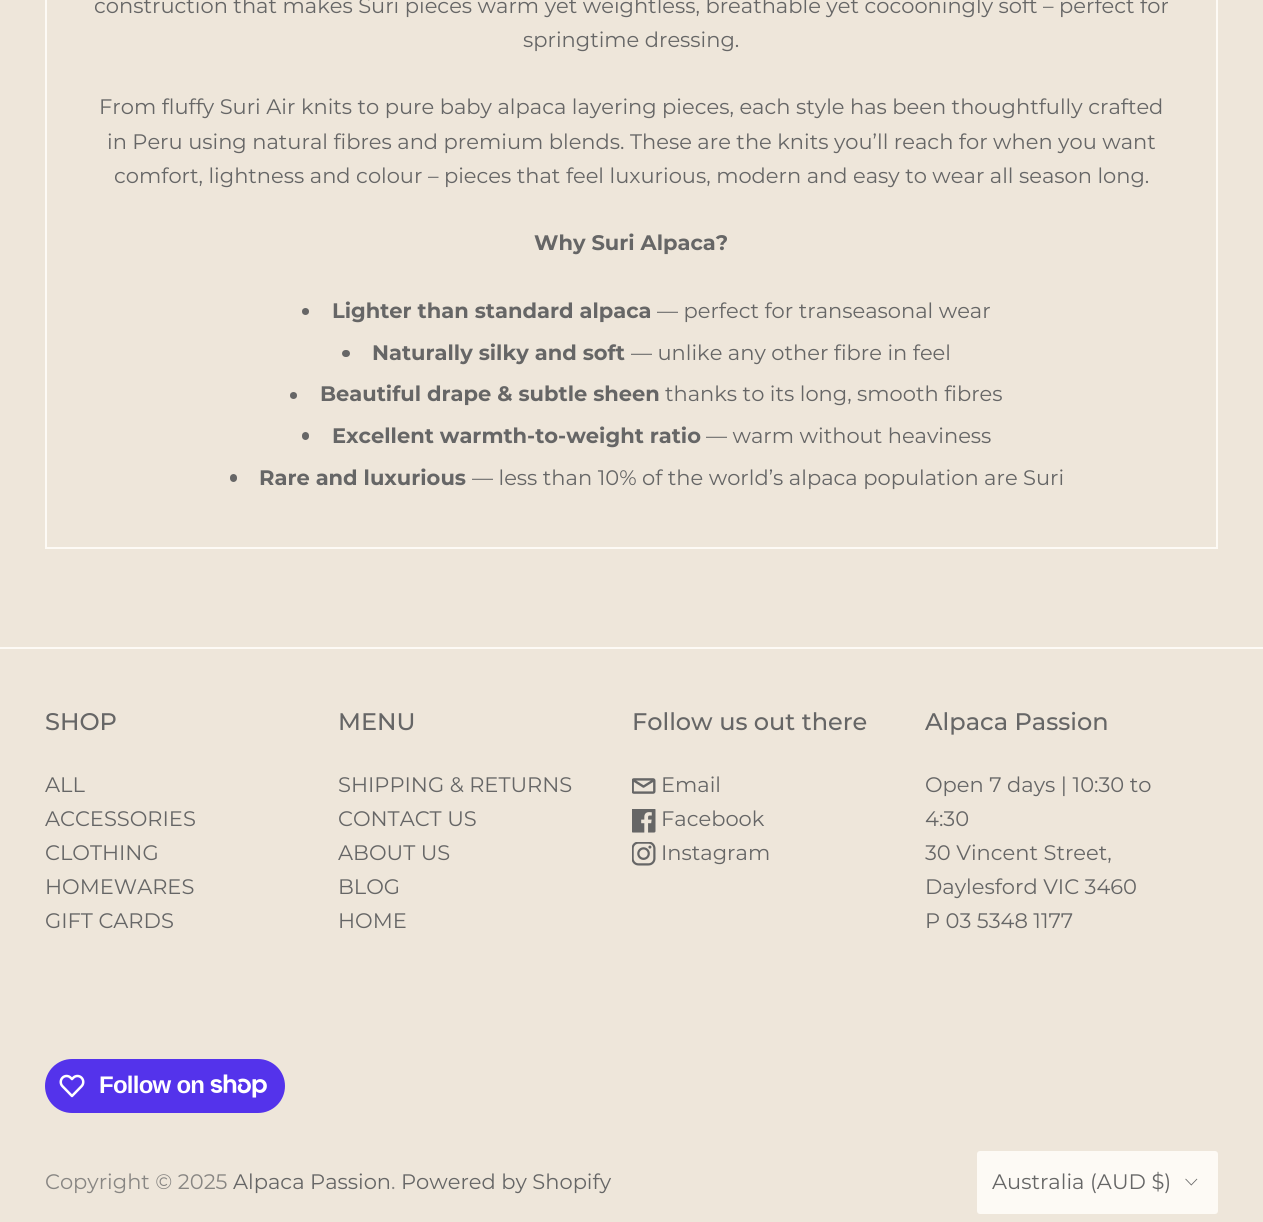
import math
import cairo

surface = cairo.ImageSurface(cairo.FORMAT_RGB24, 1263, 1222)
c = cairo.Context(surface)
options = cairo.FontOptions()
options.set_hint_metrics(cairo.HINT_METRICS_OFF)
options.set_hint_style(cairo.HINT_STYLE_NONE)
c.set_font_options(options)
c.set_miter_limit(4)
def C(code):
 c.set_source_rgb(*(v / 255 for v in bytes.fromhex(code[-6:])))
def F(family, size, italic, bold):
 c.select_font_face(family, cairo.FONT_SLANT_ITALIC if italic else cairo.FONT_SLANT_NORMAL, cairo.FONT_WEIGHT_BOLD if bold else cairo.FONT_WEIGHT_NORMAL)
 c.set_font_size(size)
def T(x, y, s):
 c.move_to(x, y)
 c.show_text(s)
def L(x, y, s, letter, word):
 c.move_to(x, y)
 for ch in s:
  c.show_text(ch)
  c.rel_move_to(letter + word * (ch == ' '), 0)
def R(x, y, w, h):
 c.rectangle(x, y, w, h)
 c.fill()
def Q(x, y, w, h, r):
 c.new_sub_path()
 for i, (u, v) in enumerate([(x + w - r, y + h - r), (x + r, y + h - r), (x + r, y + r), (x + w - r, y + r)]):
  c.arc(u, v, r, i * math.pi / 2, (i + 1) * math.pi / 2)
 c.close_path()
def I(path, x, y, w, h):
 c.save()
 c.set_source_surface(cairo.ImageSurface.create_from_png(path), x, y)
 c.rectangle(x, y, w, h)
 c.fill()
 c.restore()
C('eee6da')
c.paint()
c.rectangle(46,-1,1171,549)
C('fdfaf5')
c.stroke()
F('Montserrat',21,0,0)
C('666666')
T(94,13,'construction that makes Suri pieces warm yet weightless, breathable yet cocooningly soft – perfect for')
T(523,47,'springtime dressing.')
T(99,114,'From fluffy Suri Air knits to pure baby alpaca layering pieces, each style has been thoughtfully crafted')
T(107,149,'in Peru using natural fibres and premium blends. These are the knits you’ll reach for when you want')
T(114,183,'comfort, lightness and colour – pieces that feel luxurious, modern and easy to wear all season long.')
F('Montserrat',21,0,1)
T(534,250,'Why Suri Alpaca?')
c.new_path()
c.arc(305.5,311.5,3.5,0,2 * math.pi)
c.fill()
T(332,318,'Lighter than standard alpaca')
F('Montserrat',21,0,0)
T(657,318,'— perfect for transeasonal wear')
Q(342,350,8,7,3.5)
c.fill()
F('Montserrat',21,0,1)
T(372,360,'Naturally silky and soft')
F('Montserrat',21,0,0)
T(631,360,'— unlike any other fibre in feel')
c.new_path()
c.arc(293.5,395.5,3.5,0,2 * math.pi)
c.fill()
F('Montserrat',21,0,1)
T(320,401,'Beautiful drape & subtle sheen')
F('Montserrat',21,0,0)
T(665,401,'thanks to its long, smooth fibres')
Q(302,432,7,8,3.5)
c.fill()
F('Montserrat',21,0,1)
T(332,443,'Excellent warmth-to-weight ratio')
F('Montserrat',21,0,0)
T(706,443,'— warm without heaviness')
Q(230,474,7,8,3.5)
c.fill()
F('Montserrat',21,0,1)
T(259,485,'Rare and luxurious')
F('Montserrat',21,0,0)
T(472,485,'— less than 10% of the world’s alpaca population are Suri')
C('fdfaf5')
R(0,647,1263,2)
F('Montserrat Medium',24,0,0)
C('666666')
T(45,730,'SHOP')
F('Montserrat',21,0,0)
T(45,792,'ALL')
T(45,826,'ACCESSORIES')
T(45,860,'CLOTHING')
T(45,894,'HOMEWARES')
T(45,928,'GIFT CARDS')
F('Montserrat Medium',24,0,0)
T(338,730,'MENU')
F('Montserrat',21,0,0)
T(338,792,'SHIPPING & RETURNS')
T(338,826,'CONTACT US')
T(338,860,'ABOUT US')
T(338,894,'BLOG')
T(338,928,'HOME')
F('Montserrat Medium',24,0,0)
T(632,730,'Follow us out there')
I('1.png',632,778,24,16)
F('Montserrat',21,0,0)
T(661,792,'Email')
I('2.png',632,809,24,24)
T(661,826,'Facebook')
I('3.png',632,842,24,24)
T(661,860,'Instagram')
F('Montserrat Medium',24,0,0)
T(925,730,'Alpaca Passion')
F('Montserrat',21,0,0)
T(925,792,'Open 7 days | 10:30 to')
T(925,826,'4:30')
T(925,860,'30 Vincent Street,')
T(925,894,'Daylesford VIC 3460')
T(925,928,'P 03 5348 1177')
C('5433eb')
Q(45,1059,240,54,27)
c.fill()
I('4.png',59,1074,26,24)
F('Liberation Sans',24,0,1)
C('ffffff')
L(99,1093,'Follow on',-.75,0)
I('5.png',210,1074,57,24)
F('Montserrat',21,0,0)
C('888683')
T(45,1189,'Copyright © 2025')
C('666666')
T(233,1189,'Alpaca Passion')
C('888683')
T(391,1189,'.')
C('666666')
T(401,1189,'Powered by Shopify')
C('fdfaf5')
Q(978,1152,239,61,2)
c.fill_preserve()
c.stroke()
C('666666')
T(992,1189,'Australia (AUD $)')
I('6.png',1185,1178,13,8)
surface.write_to_png('o.png')
